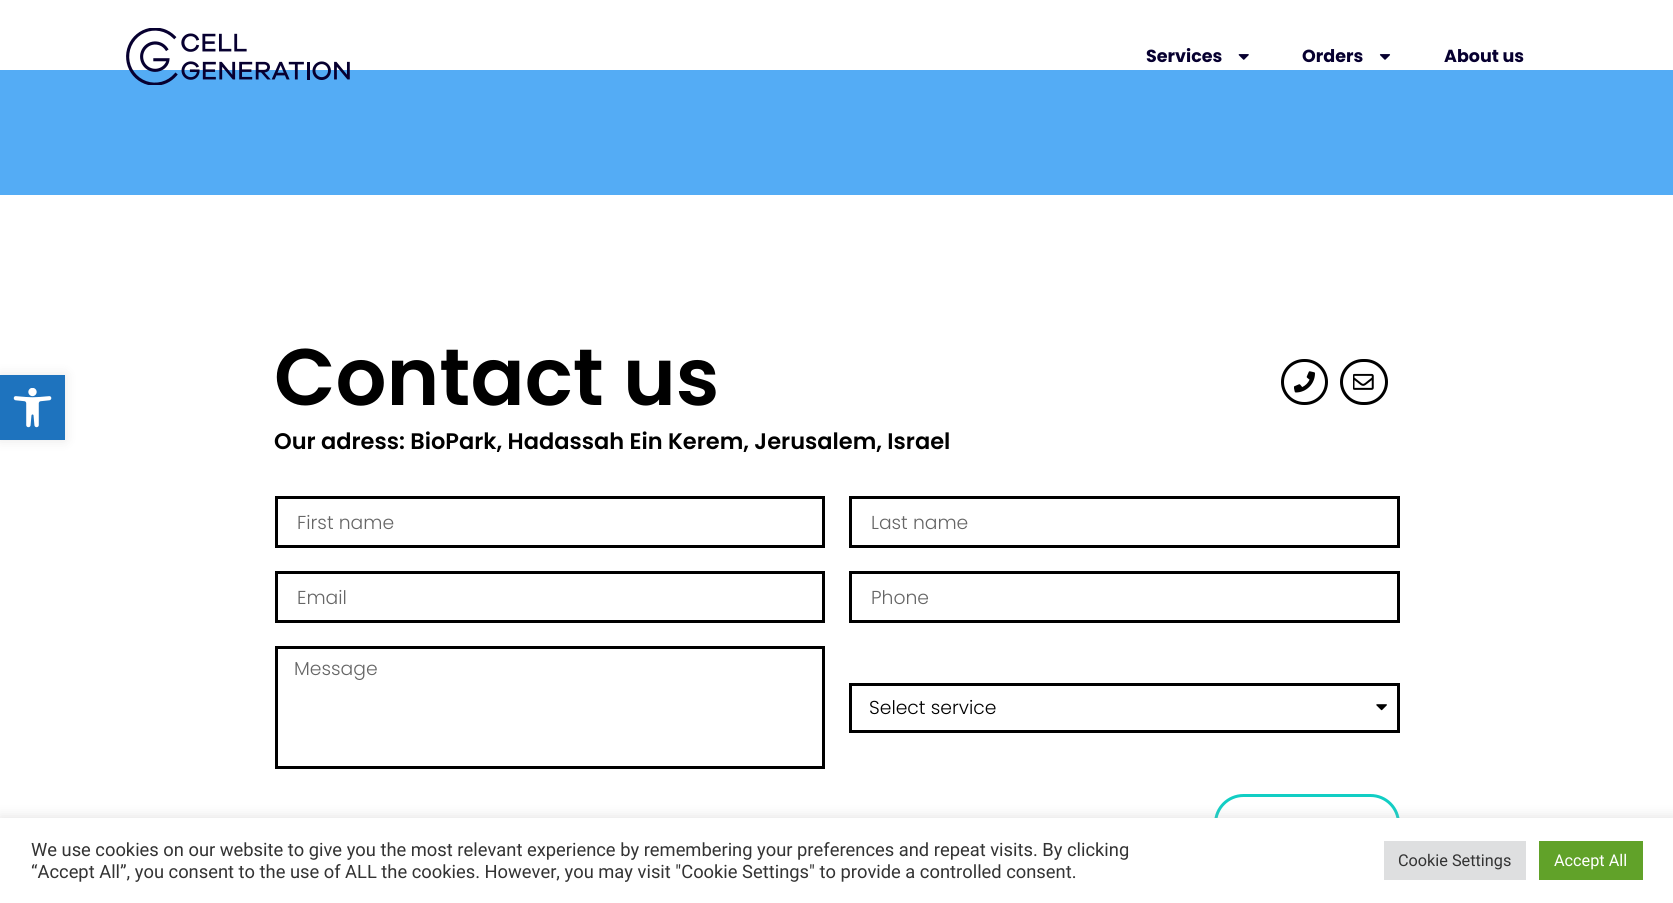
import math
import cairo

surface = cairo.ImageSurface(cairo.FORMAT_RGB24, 1673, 903)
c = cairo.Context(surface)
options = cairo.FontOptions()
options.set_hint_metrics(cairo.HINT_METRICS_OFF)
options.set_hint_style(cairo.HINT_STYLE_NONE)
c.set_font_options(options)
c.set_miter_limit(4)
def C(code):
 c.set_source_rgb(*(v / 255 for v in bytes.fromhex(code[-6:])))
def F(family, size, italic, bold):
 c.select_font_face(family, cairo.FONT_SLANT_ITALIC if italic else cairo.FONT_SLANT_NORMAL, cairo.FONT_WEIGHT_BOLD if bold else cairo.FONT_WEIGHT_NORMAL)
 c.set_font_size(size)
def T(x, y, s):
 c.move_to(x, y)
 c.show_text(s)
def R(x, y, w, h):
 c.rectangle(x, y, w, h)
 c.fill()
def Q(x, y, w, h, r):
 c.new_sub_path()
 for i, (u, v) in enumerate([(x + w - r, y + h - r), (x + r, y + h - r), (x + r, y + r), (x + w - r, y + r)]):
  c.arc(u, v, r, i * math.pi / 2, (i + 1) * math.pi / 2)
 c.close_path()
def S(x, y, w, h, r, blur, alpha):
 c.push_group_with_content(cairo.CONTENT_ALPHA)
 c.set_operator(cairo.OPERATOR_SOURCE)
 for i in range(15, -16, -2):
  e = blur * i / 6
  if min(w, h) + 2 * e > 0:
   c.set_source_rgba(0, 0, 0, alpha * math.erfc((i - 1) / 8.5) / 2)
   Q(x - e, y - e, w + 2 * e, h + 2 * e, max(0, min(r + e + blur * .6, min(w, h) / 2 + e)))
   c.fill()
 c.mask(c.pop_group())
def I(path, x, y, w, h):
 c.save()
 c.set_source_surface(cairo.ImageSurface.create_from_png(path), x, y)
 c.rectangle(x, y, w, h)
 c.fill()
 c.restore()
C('ffffff')
c.paint()
C('54acf5')
R(0,70,1673,125)
I('1.png',126,28,224,57)
F('Poppins',17.5,0,1)
C('070030')
T(1146,62,'Services')
I('2.png',1238,54,11,6)
T(1302,62,'Orders')
I('3.png',1379,54,12,6)
T(1444,62,'About us')
C('000000')
S(0,375,65,65,0,6,.1)
C('1e73be')
R(0,375,65,65)
I('4.png',13,388,39,40)
F('Poppins SemiBold',80,0,0)
C('000000')
T(274,405,'Contact us')
Q(1282.5,360.5,44,43,21.5)
c.set_line_width(3)
c.stroke()
I('5.png',1294,371,21,22)
Q(1341.5,360.5,45,43,21.5)
c.stroke()
I('6.png',1353,373,21,17)
F('Poppins SemiBold',22.5,0,0)
T(274,449,'Our adress: BioPark, Hadassah Ein Kerem, Jerusalem, Israel')
c.rectangle(276.5,497.5,547,49)
c.stroke()
F('Poppins Light',18.75,0,0)
C('666666')
T(297,529,'First name')
c.rectangle(850.5,497.5,548,49)
C('000000')
c.stroke()
C('666666')
T(871,529,'Last name')
c.rectangle(276.5,572.5,547,49)
C('000000')
c.stroke()
C('666666')
T(297,604,'Email')
c.rectangle(850.5,572.5,548,49)
C('000000')
c.stroke()
C('666666')
T(871,604,'Phone')
c.rectangle(276.5,647.5,547,120)
C('000000')
c.stroke()
C('666666')
T(294,675,'Message')
c.rectangle(850.5,684.5,548,47)
C('000000')
c.stroke()
T(869,714,'Select service')
I('7.png',1376,704,11,7)
Q(1215.5,795.5,183,56,28)
C('11cec4')
c.stroke()
C('acabab')
S(0,816,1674,87,0,6,.3)
C('ffffff')
R(0,818,1673,85)
F('Roboto',18.33,0,0)
C('333333')
T(31,856,'We use cookies on our website to give you the most relevant experience by remembering your preferences and repeat visits. By clicking')
T(31,878,'“Accept All”, you consent to the use of ALL the cookies. However, you may visit "Cookie Settings" to provide a controlled consent.')
C('dedfe0')
R(1384,841,142,39)
F('Roboto',16.25,0,0)
C('333333')
T(1398,866,'Cookie Settings')
C('61a229')
R(1539,841,104,39)
C('ffffff')
T(1554,866,'Accept All')
surface.write_to_png('o.png')
